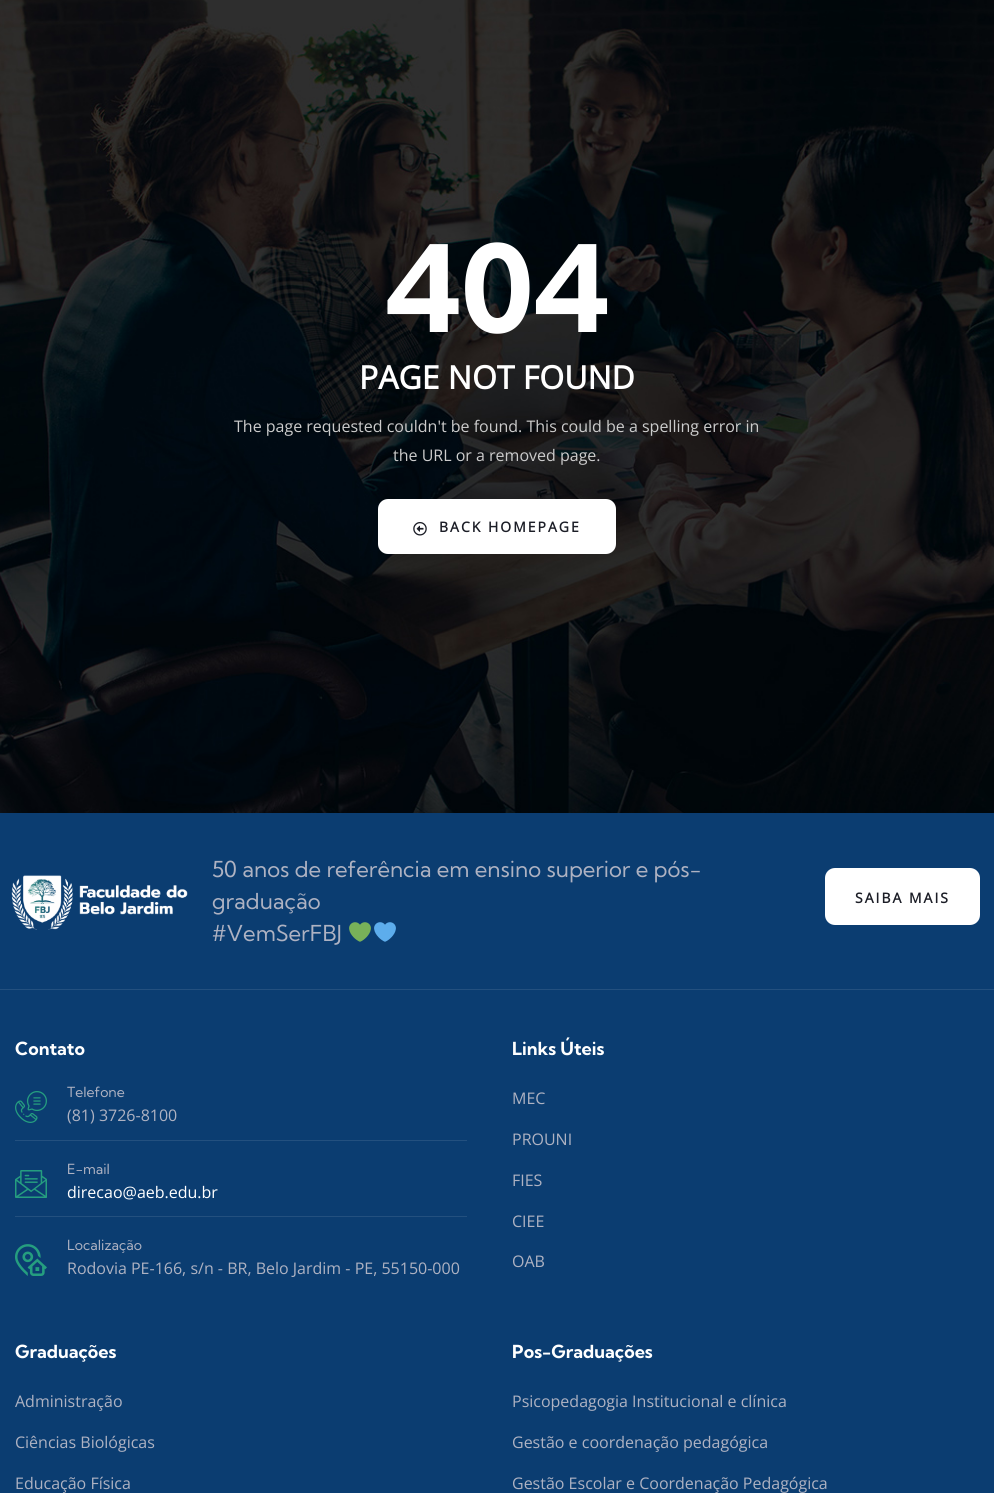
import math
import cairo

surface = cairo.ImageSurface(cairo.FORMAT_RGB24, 994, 1493)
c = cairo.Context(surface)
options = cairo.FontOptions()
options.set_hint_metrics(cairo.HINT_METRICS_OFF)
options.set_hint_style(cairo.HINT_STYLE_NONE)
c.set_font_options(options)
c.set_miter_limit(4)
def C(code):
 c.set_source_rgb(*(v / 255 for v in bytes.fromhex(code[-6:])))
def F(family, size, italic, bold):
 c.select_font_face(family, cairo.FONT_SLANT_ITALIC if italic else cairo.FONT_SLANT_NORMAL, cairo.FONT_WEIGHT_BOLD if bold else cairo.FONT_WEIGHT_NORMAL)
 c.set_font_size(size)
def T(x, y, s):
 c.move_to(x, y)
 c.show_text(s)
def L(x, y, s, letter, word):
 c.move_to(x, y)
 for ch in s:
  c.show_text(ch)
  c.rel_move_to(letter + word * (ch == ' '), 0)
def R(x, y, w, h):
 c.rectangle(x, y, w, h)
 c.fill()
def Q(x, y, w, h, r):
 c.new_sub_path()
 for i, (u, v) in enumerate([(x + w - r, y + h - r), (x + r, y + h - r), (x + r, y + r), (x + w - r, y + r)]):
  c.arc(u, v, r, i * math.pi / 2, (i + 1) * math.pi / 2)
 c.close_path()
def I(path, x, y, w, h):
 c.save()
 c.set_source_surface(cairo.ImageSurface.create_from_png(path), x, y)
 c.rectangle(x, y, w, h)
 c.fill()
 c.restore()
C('ffffff')
c.paint()
I('1.png',0,0,994,813)
F('Kumbh Sans',120,0,1)
C('ffffff')
T(385,332,'404')
F('Open Sans',32,0,1)
T(359,389,'PAGE NOT FOUND')
F('Open Sans',16,0,0)
C('cccccc')
T(234,432,'The page requested couldn\'t be found. This could be a spelling error in')
T(393,461,'the URL or a removed page.')
C('ffffff')
Q(378,499,238,55,10)
c.fill()
I('2.png',413,522,14,14)
F('Open Sans',14,0,1)
C('1c1e27')
L(439,532,'BACK HOMEPAGE',2,0)
C('0b3d71')
R(0,813,994,680)
C('23507f')
R(0,989,994,1)
I('3.png',11,875,177,55)
F('Kumbh Sans',22,0,0)
C('aeb2c2')
T(212,877,'50 anos de referência em ensino superior e pós-')
T(212,909,'graduação')
T(212,941,'#VemSerFBJ')
I('4.png',349,922,22,20)
I('5.png',374,922,22,20)
C('ffffff')
Q(825,868,155,57,10)
c.fill()
F('Open Sans',14,0,1)
C('1c1e27')
L(855,903,'SAIBA MAIS',2,0)
F('Kumbh Sans',18,0,1)
C('ffffff')
T(15,1055,'Contato')
C('23507f')
R(15,1140,452,1)
I('6.png',15,1091,32,32)
F('Kumbh Sans',14,0,0)
C('aeb2c2')
T(67,1097,'Telefone')
F('Open Sans',16,0,0)
T(67,1121,'(81) 3726-8100')
C('23507f')
R(15,1216,452,1)
I('7.png',15,1170,32,28)
F('Kumbh Sans',14,0,0)
C('aeb2c2')
T(67,1174,'E-mail')
F('Open Sans',16,0,0)
C('ffffff')
T(67,1198,'direcao@aeb.edu.br')
I('8.png',15,1244,32,32)
F('Kumbh Sans',14,0,0)
C('aeb2c2')
T(67,1250,'Localização')
F('Open Sans',16,0,0)
T(67,1274,'Rodovia PE-166, s/n - BR, Belo Jardim - PE, 55150-000')
F('Kumbh Sans',18,0,1)
C('ffffff')
T(512,1055,'Links Úteis')
F('Open Sans',16,0,0)
C('aeb2c2')
T(512,1104,'MEC')
T(512,1145,'PROUNI')
T(512,1186,'FIES')
T(512,1227,'CIEE')
T(512,1267,'OAB')
F('Kumbh Sans',18,0,1)
C('ffffff')
T(15,1358,'Graduações')
F('Open Sans',16,0,0)
C('aeb2c2')
T(15,1407,'Administração')
T(15,1448,'Ciências Biológicas')
T(15,1489,'Educação Física')
F('Kumbh Sans',18,0,1)
C('ffffff')
T(512,1358,'Pos-Graduações')
F('Open Sans',16,0,0)
C('aeb2c2')
T(512,1407,'Psicopedagogia Institucional e clínica')
T(512,1448,'Gestão e coordenação pedagógica')
T(512,1489,'Gestão Escolar e Coordenação Pedagógica')
surface.write_to_png('o.png')
